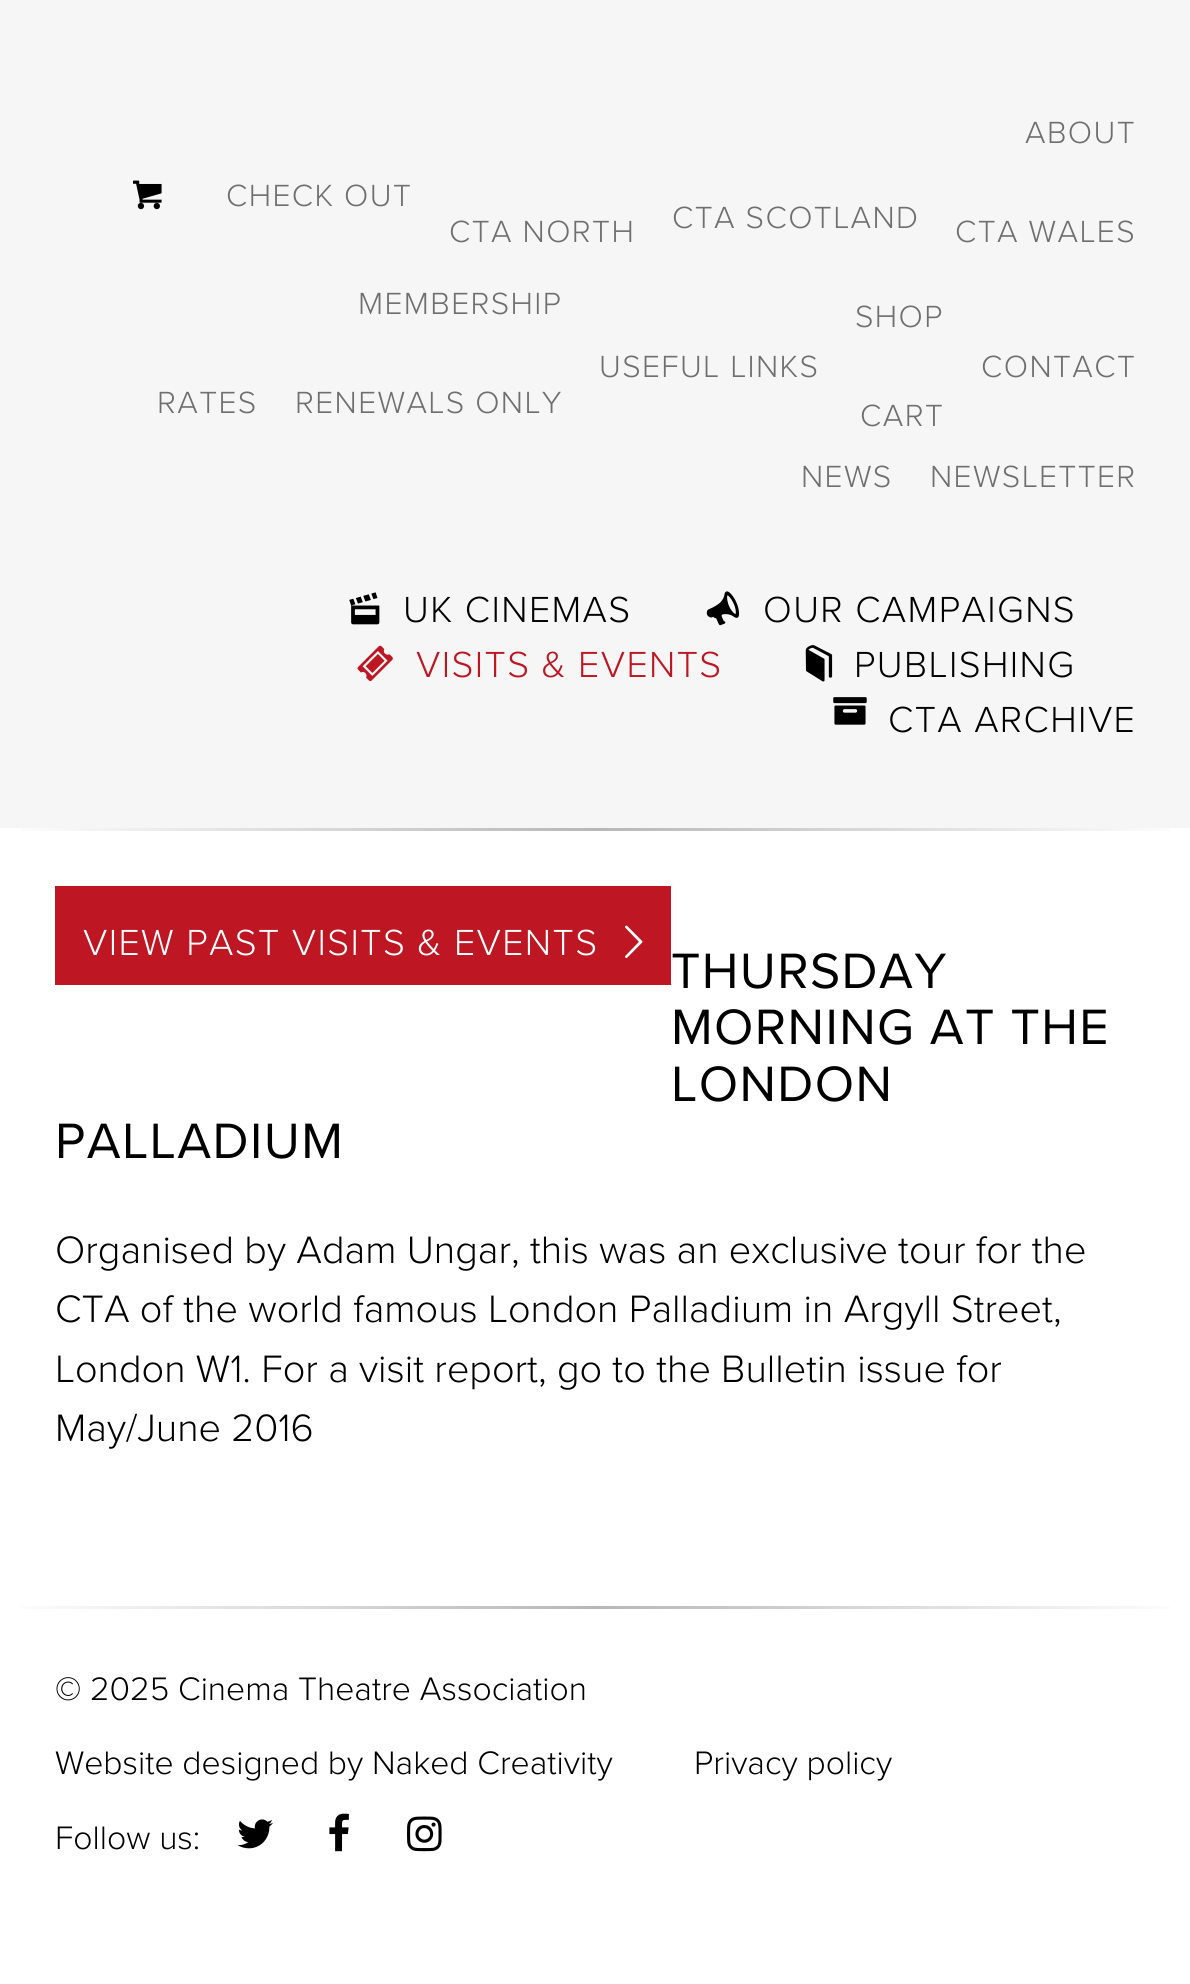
import math
import cairo

surface = cairo.ImageSurface(cairo.FORMAT_RGB24, 1190, 1984)
c = cairo.Context(surface)
options = cairo.FontOptions()
options.set_hint_metrics(cairo.HINT_METRICS_OFF)
options.set_hint_style(cairo.HINT_STYLE_NONE)
c.set_font_options(options)
c.set_miter_limit(4)
def C(code):
 c.set_source_rgb(*(v / 255 for v in bytes.fromhex(code[-6:])))
def F(family, size, italic, bold):
 c.select_font_face(family, cairo.FONT_SLANT_ITALIC if italic else cairo.FONT_SLANT_NORMAL, cairo.FONT_WEIGHT_BOLD if bold else cairo.FONT_WEIGHT_NORMAL)
 c.set_font_size(size)
def T(x, y, s):
 c.move_to(x, y)
 c.show_text(s)
def L(x, y, s, letter, word):
 c.move_to(x, y)
 for ch in s:
  c.show_text(ch)
  c.rel_move_to(letter + word * (ch == ' '), 0)
def R(x, y, w, h):
 c.rectangle(x, y, w, h)
 c.fill()
def I(path, x, y, w, h):
 c.save()
 c.set_source_surface(cairo.ImageSurface.create_from_png(path), x, y)
 c.rectangle(x, y, w, h)
 c.fill()
 c.restore()
C('ffffff')
c.paint()
C('f6f6f6')
R(0,0,1190,828)
F('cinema',31.75,0,0)
C('000000')
L(133,206,'s',1.4,0)
F('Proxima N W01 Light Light',31.75,0,0)
C('706f6f')
L(226,206,'CHECK OUT',1.4,0)
L(1025,143,'ABOUT',1.4,0)
L(672,228,'CTA SCOTLAND',1.4,0)
L(449,242,'CTA NORTH',1.4,0)
L(955,242,'CTA WALES',1.4,0)
L(358,314,'MEMBERSHIP',1.4,0)
L(157,413,'RATES',1.4,0)
L(295,413,'RENEWALS ONLY',1.4,0)
L(599,377,'USEFUL LINKS',1.4,0)
L(855,327,'SHOP',1.4,0)
L(860,426,'CART',1.4,0)
L(981,377,'CONTACT',1.4,0)
L(801,487,'NEWS',1.4,0)
L(930,487,'NEWSLETTER',1.4,0)
I('1.png',349,592,31,33)
F('Proxima N W01 Light Light',37.6,0,0)
C('000000')
L(403,622,'UK CINEMAS',1.4,0)
I('2.png',706,591,34,35)
L(763,622,'OUR CAMPAIGNS',1.4,0)
I('3.png',357,645,36,37)
C('be1622')
L(416,677,'VISITS & EVENTS',1.4,0)
I('4.png',805,645,28,37)
C('000000')
L(854,677,'PUBLISHING',1.4,0)
I('5.png',833,697,34,28)
L(888,732,'CTA ARCHIVE',1.4,0)
gradient = cairo.LinearGradient(0,829,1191,829)
gradient.add_color_stop_rgba(0,1,1,1,1)
gradient.add_color_stop_rgba(.5,0.722,0.718,0.718,1)
gradient.add_color_stop_rgba(1,1,1,1,1)
c.set_source(gradient)
R(21,828,1149,3)
C('be1622')
R(55,886,616,99)
C('ffffff')
L(83,955,'VIEW PAST VISITS & EVENTS',1.4,0)
F('cinema',37.6,0,0)
L(624,955,'>',1.4,0)
F('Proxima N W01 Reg',51.5,0,0)
C('000000')
L(671,988,'THURSDAY',1.4,0)
L(671,1044,'MORNING AT THE',1.4,0)
L(671,1101,'LONDON',1.4,0)
L(55,1158,'PALLADIUM',1.4,0)
F('Proxima N W01 Light Light',39.6,0,0)
T(55,1263,'Organised by Adam Ungar, this was an exclusive tour for the')
T(55,1322,'CTA of the world famous London Palladium in Argyll Street,')
T(55,1382,'London W1. For a visit report, go to the Bulletin issue for')
T(55,1441,'May/June 2016')
gradient = cairo.LinearGradient(0,1607,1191,1607)
gradient.add_color_stop_rgba(0,1,1,1,1)
gradient.add_color_stop_rgba(.5,0.722,0.718,0.718,1)
gradient.add_color_stop_rgba(1,1,1,1,1)
c.set_source(gradient)
R(21,1606,1149,3)
F('Proxima N W01 Light Light',33.7,0,0)
C('000000')
T(55,1700,'© 2025 Cinema Theatre Association')
T(55,1774,'Website designed by Naked Creativity')
T(694,1774,'Privacy policy')
T(55,1849,'Follow us:')
I('6.png',237,1819,36,30)
I('7.png',329,1813,20,39)
I('8.png',407,1816,35,36)
surface.write_to_png('o.png')
